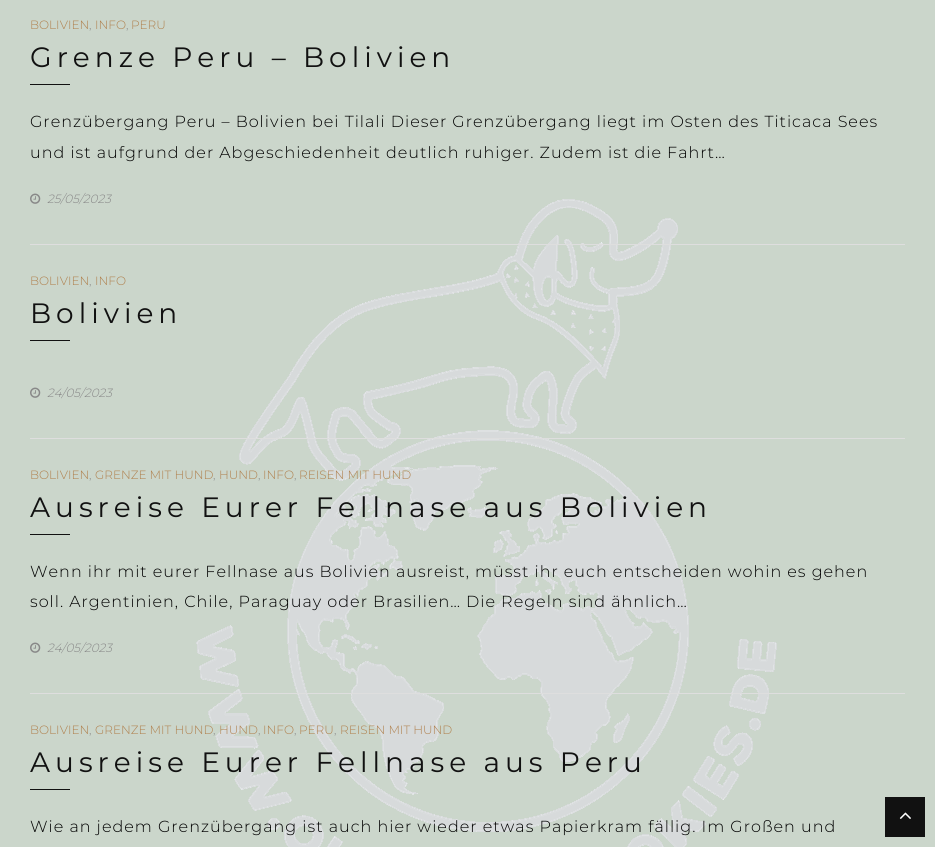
import math
import cairo

surface = cairo.ImageSurface(cairo.FORMAT_RGB24, 935, 847)
c = cairo.Context(surface)
options = cairo.FontOptions()
options.set_hint_metrics(cairo.HINT_METRICS_OFF)
options.set_hint_style(cairo.HINT_STYLE_NONE)
c.set_font_options(options)
c.set_miter_limit(4)
def C(code):
 c.set_source_rgb(*(v / 255 for v in bytes.fromhex(code[-6:])))
def F(family, size, italic, bold):
 c.select_font_face(family, cairo.FONT_SLANT_ITALIC if italic else cairo.FONT_SLANT_NORMAL, cairo.FONT_WEIGHT_BOLD if bold else cairo.FONT_WEIGHT_NORMAL)
 c.set_font_size(size)
def T(x, y, s):
 c.move_to(x, y)
 c.show_text(s)
def L(x, y, s, letter, word):
 c.move_to(x, y)
 for ch in s:
  c.show_text(ch)
  c.rel_move_to(letter + word * (ch == ' '), 0)
def R(x, y, w, h):
 c.rectangle(x, y, w, h)
 c.fill()
def I(path, x, y, w, h):
 c.save()
 c.set_source_surface(cairo.ImageSurface.create_from_png(path), x, y)
 c.rectangle(x, y, w, h)
 c.fill()
 c.restore()
C('cbd6cb')
c.paint()
I('1.png',196,199,581,648)
C('dedede')
R(30,244,875,1)
F('Montserrat Light',12,0,0)
C('b0814e')
T(30,29,'BOLIVIEN')
C('888888')
T(89,29,',')
C('b0814e')
T(95,29,'INFO')
C('888888')
T(126,29,',')
C('b0814e')
T(131,29,'PERU')
F('Montserrat',28,0,0)
C('111111')
L(30,67,'Grenze Peru – Bolivien',5,0)
R(30,84,40,1)
F('Montserrat Light',16,0,0)
C('000000')
L(30,127,'Grenzübergang Peru – Bolivien bei Tilali Dieser Grenzübergang liegt im Osten des Titicaca Sees',1,0)
L(30,158,'und ist aufgrund der Abgeschiedenheit deutlich ruhiger. Zudem ist die Fahrt…',1,0)
I('2.png',30,193,11,11)
F('Montserrat Light',12,1,0)
C('888888')
T(47,203,'25/05/2023')
C('dedede')
R(30,438,875,1)
F('Montserrat Light',12,0,0)
C('b0814e')
T(30,285,'BOLIVIEN')
C('888888')
T(89,285,',')
C('b0814e')
T(95,285,'INFO')
F('Montserrat',28,0,0)
C('111111')
L(30,323,'Bolivien',5,0)
R(30,340,40,1)
I('2.png',30,387,11,11)
F('Montserrat Light',12,1,0)
C('888888')
T(47,397,'24/05/2023')
C('dedede')
R(30,693,875,1)
F('Montserrat Light',12,0,0)
C('b0814e')
T(30,479,'BOLIVIEN')
C('888888')
T(89,479,',')
C('b0814e')
T(95,479,'GRENZE MIT HUND')
C('888888')
T(213,479,',')
C('b0814e')
T(219,479,'HUND')
C('888888')
T(258,479,',')
C('b0814e')
T(263,479,'INFO')
C('888888')
T(294,479,',')
C('b0814e')
T(299,479,'REISEN MIT HUND')
F('Montserrat',28,0,0)
C('111111')
L(30,517,'Ausreise Eurer Fellnase aus Bolivien',5,0)
R(30,534,40,1)
F('Montserrat Light',16,0,0)
C('000000')
L(30,577,'Wenn ihr mit eurer Fellnase aus Bolivien ausreist, müsst ihr euch entscheiden wohin es gehen',1,0)
L(30,607,'soll. Argentinien, Chile, Paraguay oder Brasilien… Die Regeln sind ähnlich…',1,0)
I('2.png',30,642,11,11)
F('Montserrat Light',12,1,0)
C('888888')
T(47,652,'24/05/2023')
F('Montserrat Light',12,0,0)
C('b0814e')
T(30,734,'BOLIVIEN')
C('888888')
T(89,734,',')
C('b0814e')
T(95,734,'GRENZE MIT HUND')
C('888888')
T(213,734,',')
C('b0814e')
T(219,734,'HUND')
C('888888')
T(258,734,',')
C('b0814e')
T(263,734,'INFO')
C('888888')
T(294,734,',')
C('b0814e')
T(299,734,'PERU')
C('888888')
T(334,734,',')
C('b0814e')
T(340,734,'REISEN MIT HUND')
F('Montserrat',28,0,0)
C('111111')
L(30,772,'Ausreise Eurer Fellnase aus Peru',5,0)
R(30,789,40,1)
F('Montserrat Light',16,0,0)
C('000000')
L(30,832,'Wie an jedem Grenzübergang ist auch hier wieder etwas Papierkram fällig. Im Großen und',1,0)
C('111111')
R(885,797,40,40)
I('3.png',899,812,12,7)
surface.write_to_png('o.png')
